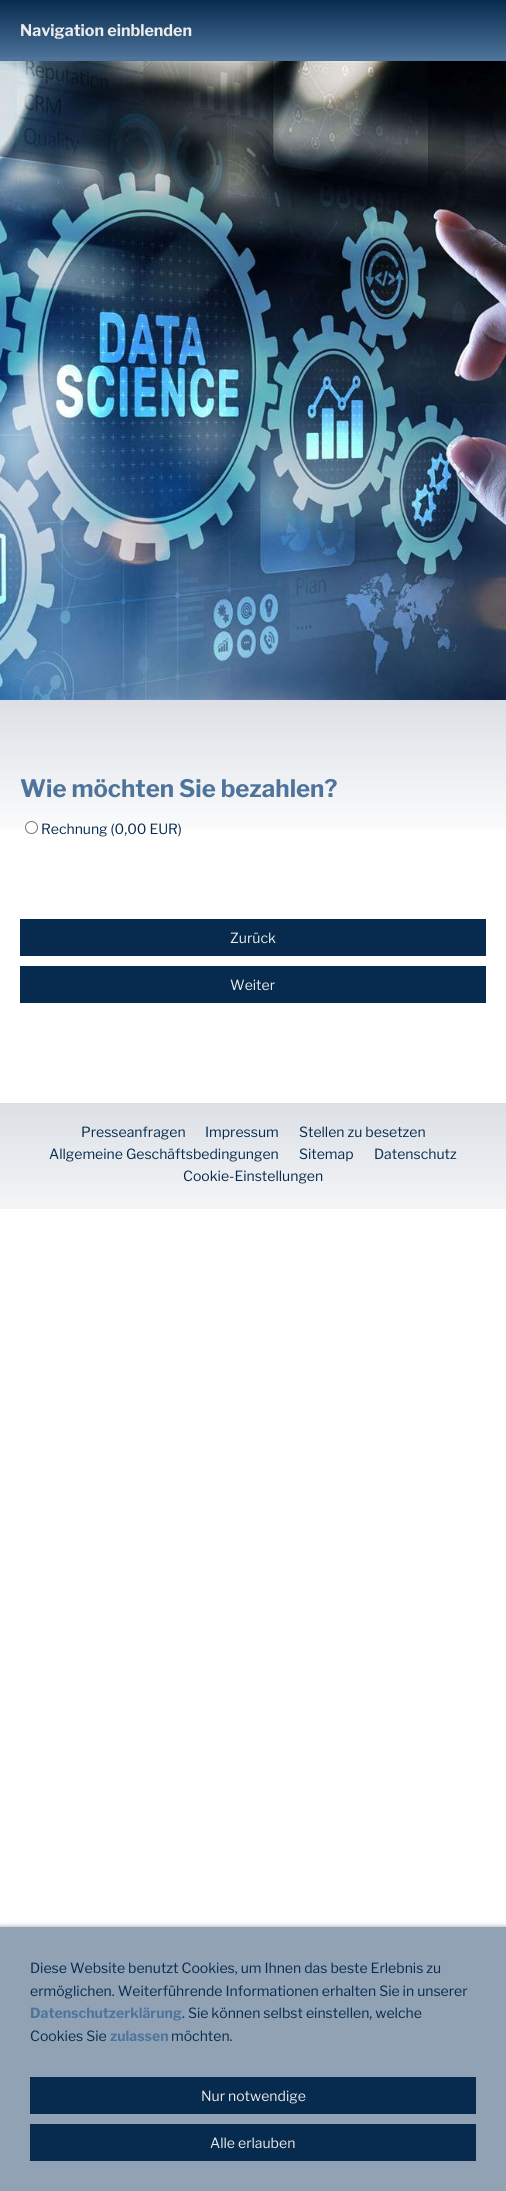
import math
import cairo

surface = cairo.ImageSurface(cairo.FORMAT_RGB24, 506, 2191)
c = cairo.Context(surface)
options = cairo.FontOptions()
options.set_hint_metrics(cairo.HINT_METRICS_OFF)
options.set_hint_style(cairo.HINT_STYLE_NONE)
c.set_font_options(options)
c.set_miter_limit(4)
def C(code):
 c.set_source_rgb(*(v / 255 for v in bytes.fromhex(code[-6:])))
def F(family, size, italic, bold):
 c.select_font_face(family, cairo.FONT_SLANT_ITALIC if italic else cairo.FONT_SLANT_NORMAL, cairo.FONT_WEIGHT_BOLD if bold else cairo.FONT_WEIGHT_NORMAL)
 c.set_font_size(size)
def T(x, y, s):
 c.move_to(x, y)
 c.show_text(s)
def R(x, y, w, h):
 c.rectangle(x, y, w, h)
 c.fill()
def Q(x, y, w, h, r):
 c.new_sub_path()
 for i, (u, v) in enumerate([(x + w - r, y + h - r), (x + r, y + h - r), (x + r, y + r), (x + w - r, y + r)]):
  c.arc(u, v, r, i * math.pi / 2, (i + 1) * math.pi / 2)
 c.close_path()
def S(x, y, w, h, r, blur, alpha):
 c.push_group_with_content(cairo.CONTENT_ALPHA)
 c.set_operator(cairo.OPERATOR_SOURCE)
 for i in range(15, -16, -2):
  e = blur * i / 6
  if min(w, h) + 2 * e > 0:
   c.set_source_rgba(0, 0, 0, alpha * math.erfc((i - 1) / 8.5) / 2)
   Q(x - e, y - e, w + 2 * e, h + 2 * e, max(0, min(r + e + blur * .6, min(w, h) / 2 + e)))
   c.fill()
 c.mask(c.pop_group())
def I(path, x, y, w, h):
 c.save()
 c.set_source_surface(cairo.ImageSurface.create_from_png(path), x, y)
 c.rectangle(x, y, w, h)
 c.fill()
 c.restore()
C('ffffff')
c.paint()
C('4e749c')
R(0,57,506,4)
I('1.png',0,0,506,57)
F('Libre Franklin',16,0,1)
C('ebebeb')
T(20,36,'Navigation einblenden')
I('2.png',0,61,506,639)
I('3.png',0,700,506,129)
F('Libre Franklin',24,0,1)
C('4e749c')
T(20,797,'Wie möchten Sie bezahlen?')
C('ffffff')
c.new_path()
c.arc(31.5,827.5,6,0,2 * math.pi)
c.fill_preserve()
C('767676')
c.set_line_width(1)
c.stroke()
F('Libre Franklin',14,0,0)
C('072b4e')
T(41,834,'Rechnung (0,00 EUR)')
R(20,919,466,37)
C('ebebeb')
T(230,943,'Zurück')
C('072b4e')
R(20,966,466,37)
C('ebebeb')
T(230,990,'Weiter')
I('4.png',0,1103,506,106)
C('072b4e')
T(81,1137,'Presseanfragen')
T(205,1137,'Impressum')
T(299,1137,'Stellen zu besetzen')
T(49,1159,'Allgemeine Geschäftsbedingungen')
T(299,1159,'Sitemap')
T(374,1159,'Datenschutz')
T(183,1181,'Cookie-Einstellungen')
C('000000')
S(0,1927,506,264,0,2.5,.4)
C('91a2b5')
R(0,1927,506,264)
C('072b4e')
T(30,1973,'Diese Website benutzt Cookies, um Ihnen das beste Erlebnis zu')
T(30,1996,'ermöglichen. Weiterführende Informationen erhalten Sie in unserer')
F('Libre Franklin',14,0,1)
C('4e749c')
T(30,2018,'Datenschutzerklärung')
F('Libre Franklin',14,0,0)
C('072b4e')
T(182,2018,'. Sie können selbst einstellen, welche')
T(30,2041,'Cookies Sie')
F('Libre Franklin',14,0,1)
C('4e749c')
T(110,2041,'zulassen')
F('Libre Franklin',14,0,0)
C('072b4e')
T(171,2041,'möchten.')
R(30,2077,446,37)
C('ebebeb')
T(201,2101,'Nur notwendige')
C('072b4e')
R(30,2124,446,37)
C('ebebeb')
T(210,2148,'Alle erlauben')
surface.write_to_png('o.png')
